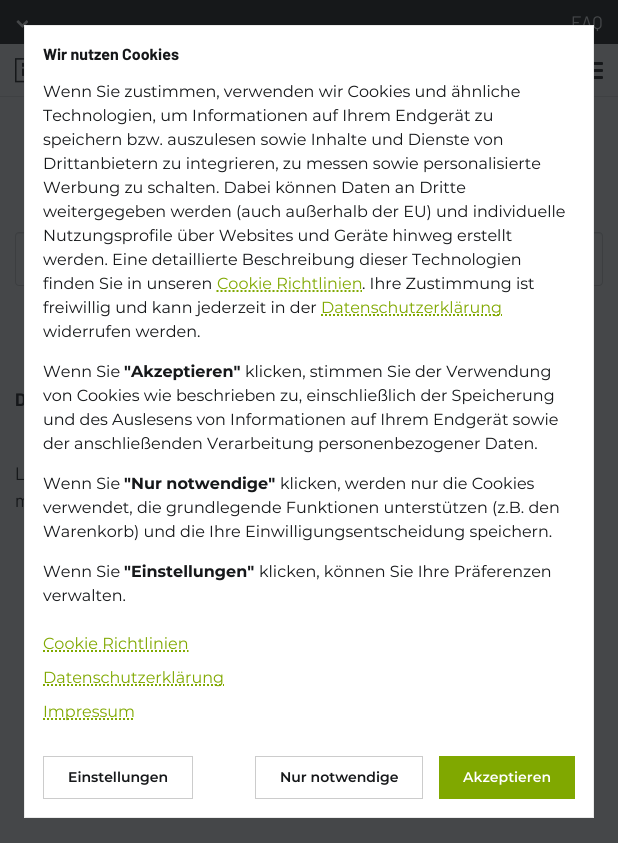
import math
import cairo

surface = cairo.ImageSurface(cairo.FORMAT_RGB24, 618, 843)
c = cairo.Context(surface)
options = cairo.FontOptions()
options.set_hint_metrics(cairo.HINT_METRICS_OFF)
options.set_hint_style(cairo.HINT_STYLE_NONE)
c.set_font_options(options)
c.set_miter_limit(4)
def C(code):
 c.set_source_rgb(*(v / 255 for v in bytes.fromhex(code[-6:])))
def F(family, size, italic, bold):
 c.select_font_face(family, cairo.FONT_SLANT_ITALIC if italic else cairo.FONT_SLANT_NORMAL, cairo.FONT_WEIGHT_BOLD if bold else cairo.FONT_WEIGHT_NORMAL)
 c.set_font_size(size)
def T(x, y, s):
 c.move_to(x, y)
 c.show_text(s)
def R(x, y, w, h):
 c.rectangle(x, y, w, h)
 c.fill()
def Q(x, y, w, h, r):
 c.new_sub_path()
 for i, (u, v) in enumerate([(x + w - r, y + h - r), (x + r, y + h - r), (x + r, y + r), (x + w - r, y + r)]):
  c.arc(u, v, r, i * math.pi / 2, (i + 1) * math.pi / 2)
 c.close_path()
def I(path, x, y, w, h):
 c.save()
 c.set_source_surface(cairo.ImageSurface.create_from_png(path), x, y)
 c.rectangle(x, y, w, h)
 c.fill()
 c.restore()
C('454749')
c.paint()
C('16181a')
R(0,0,618,44)
I('1.png',16,20,12,8)
F('Barlow',18,0,0)
C('454749')
T(571,29,'FAQ')
C('3f4143')
R(0,96,618,1)
I('2.png',15,58,9,25)
C('16181a')
Q(583,62,20,3,1)
c.fill()
Q(583,69,20,3,1)
c.fill()
Q(583,76,20,3,1)
c.fill()
C('414345')
c.new_path()
c.move_to(19,234)
c.line_to(599,234)
c.curve_to(601,234,602,235,602,237)
c.line_to(602,236)
c.curve_to(602,234,601,233,599,233)
c.line_to(19,233)
c.curve_to(17,233,16,234,16,236)
c.line_to(16,237)
c.curve_to(16,235,17,234,19,234)
c.close_path()
c.fill()
Q(15.5,232.5,587,53,3.5)
C('3c3e40')
c.set_line_width(1)
c.stroke()
F('Barlow',18,0,1)
C('16181a')
T(15,406,'D')
F('Barlow',18,0,0)
T(15,480,'L')
T(15,507,'m')
C('ffffff')
c.rectangle(24.5,25.5,569,792)
c.fill_preserve()
C('ebebeb')
c.stroke()
F('Barlow',16,0,1)
C('16181a')
T(43,60,'Wir nutzen Cookies')
F('Montserrat',16,0,0)
T(43,97,'Wenn Sie zustimmen, verwenden wir Cookies und ähnliche')
T(43,121,'Technologien, um Informationen auf Ihrem Endgerät zu')
T(43,145,'speichern bzw. auszulesen sowie Inhalte und Dienste von')
T(43,169,'Drittanbietern zu integrieren, zu messen sowie personalisierte')
T(43,193,'Werbung zu schalten. Dabei können Daten an Dritte')
T(43,217,'weitergegeben werden (auch außerhalb der EU) und individuelle')
T(43,241,'Nutzungsprofile über Websites und Geräte hinweg erstellt')
T(43,265,'werden. Eine detaillierte Beschreibung dieser Technologien')
T(43,289,'finden Sie in unseren')
C('80a800')
T(217,289,'Cookie Richtlinien')
c.new_path()
c.move_to(216.5,291)
c.line_to(362,291)
c.set_line_width(2)
c.set_dash([2,2])
c.stroke()
C('16181a')
T(362,289,'. Ihre Zustimmung ist')
T(43,313,'freiwillig und kann jederzeit in der')
c.new_path()
c.move_to(321,315)
c.line_to(502,315)
C('80a800')
c.stroke()
T(321,313,'Datenschutzerklärung')
C('16181a')
T(43,337,'widerrufen werden.')
T(43,377,'Wenn Sie')
F('Montserrat',16,0,1)
T(124,377,'"Akzeptieren"')
F('Montserrat',16,0,0)
T(245,377,'klicken, stimmen Sie der Verwendung')
T(43,401,'von Cookies wie beschrieben zu, einschließlich der Speicherung')
T(43,425,'und des Auslesens von Informationen auf Ihrem Endgerät sowie')
T(43,449,'der anschließenden Verarbeitung personenbezogener Daten.')
T(43,489,'Wenn Sie')
F('Montserrat',16,0,1)
T(124,489,'"Nur notwendige"')
F('Montserrat',16,0,0)
T(280,489,'klicken, werden nur die Cookies')
T(43,513,'verwendet, die grundlegende Funktionen unterstützen (z.B. den')
T(43,537,'Warenkorb) und die Ihre Einwilligungsentscheidung speichern.')
T(43,577,'Wenn Sie')
F('Montserrat',16,0,1)
T(124,577,'"Einstellungen"')
F('Montserrat',16,0,0)
T(259,577,'klicken, können Sie Ihre Präferenzen')
T(43,601,'verwalten.')
C('80a800')
T(43,649,'Cookie Richtlinien')
c.new_path()
c.move_to(43,651)
c.line_to(188.5,651)
c.stroke()
c.new_path()
c.move_to(43,685)
c.line_to(224,685)
c.stroke()
T(43,683,'Datenschutzerklärung')
c.new_path()
c.move_to(43,719)
c.line_to(135,719)
c.stroke()
T(43,717,'Impressum')
c.rectangle(43.5,756.5,149,42)
C('cccccc')
c.set_line_width(1)
c.set_dash([])
c.stroke()
F('Montserrat SemiBold',14,0,0)
C('16181a')
T(68,782,'Einstellungen')
c.rectangle(255.5,756.5,167,42)
C('cccccc')
c.stroke()
C('16181a')
T(280,782,'Nur notwendige')
C('80a800')
R(439,756,136,43)
C('ffffff')
T(463,782,'Akzeptieren')
surface.write_to_png('o.png')
